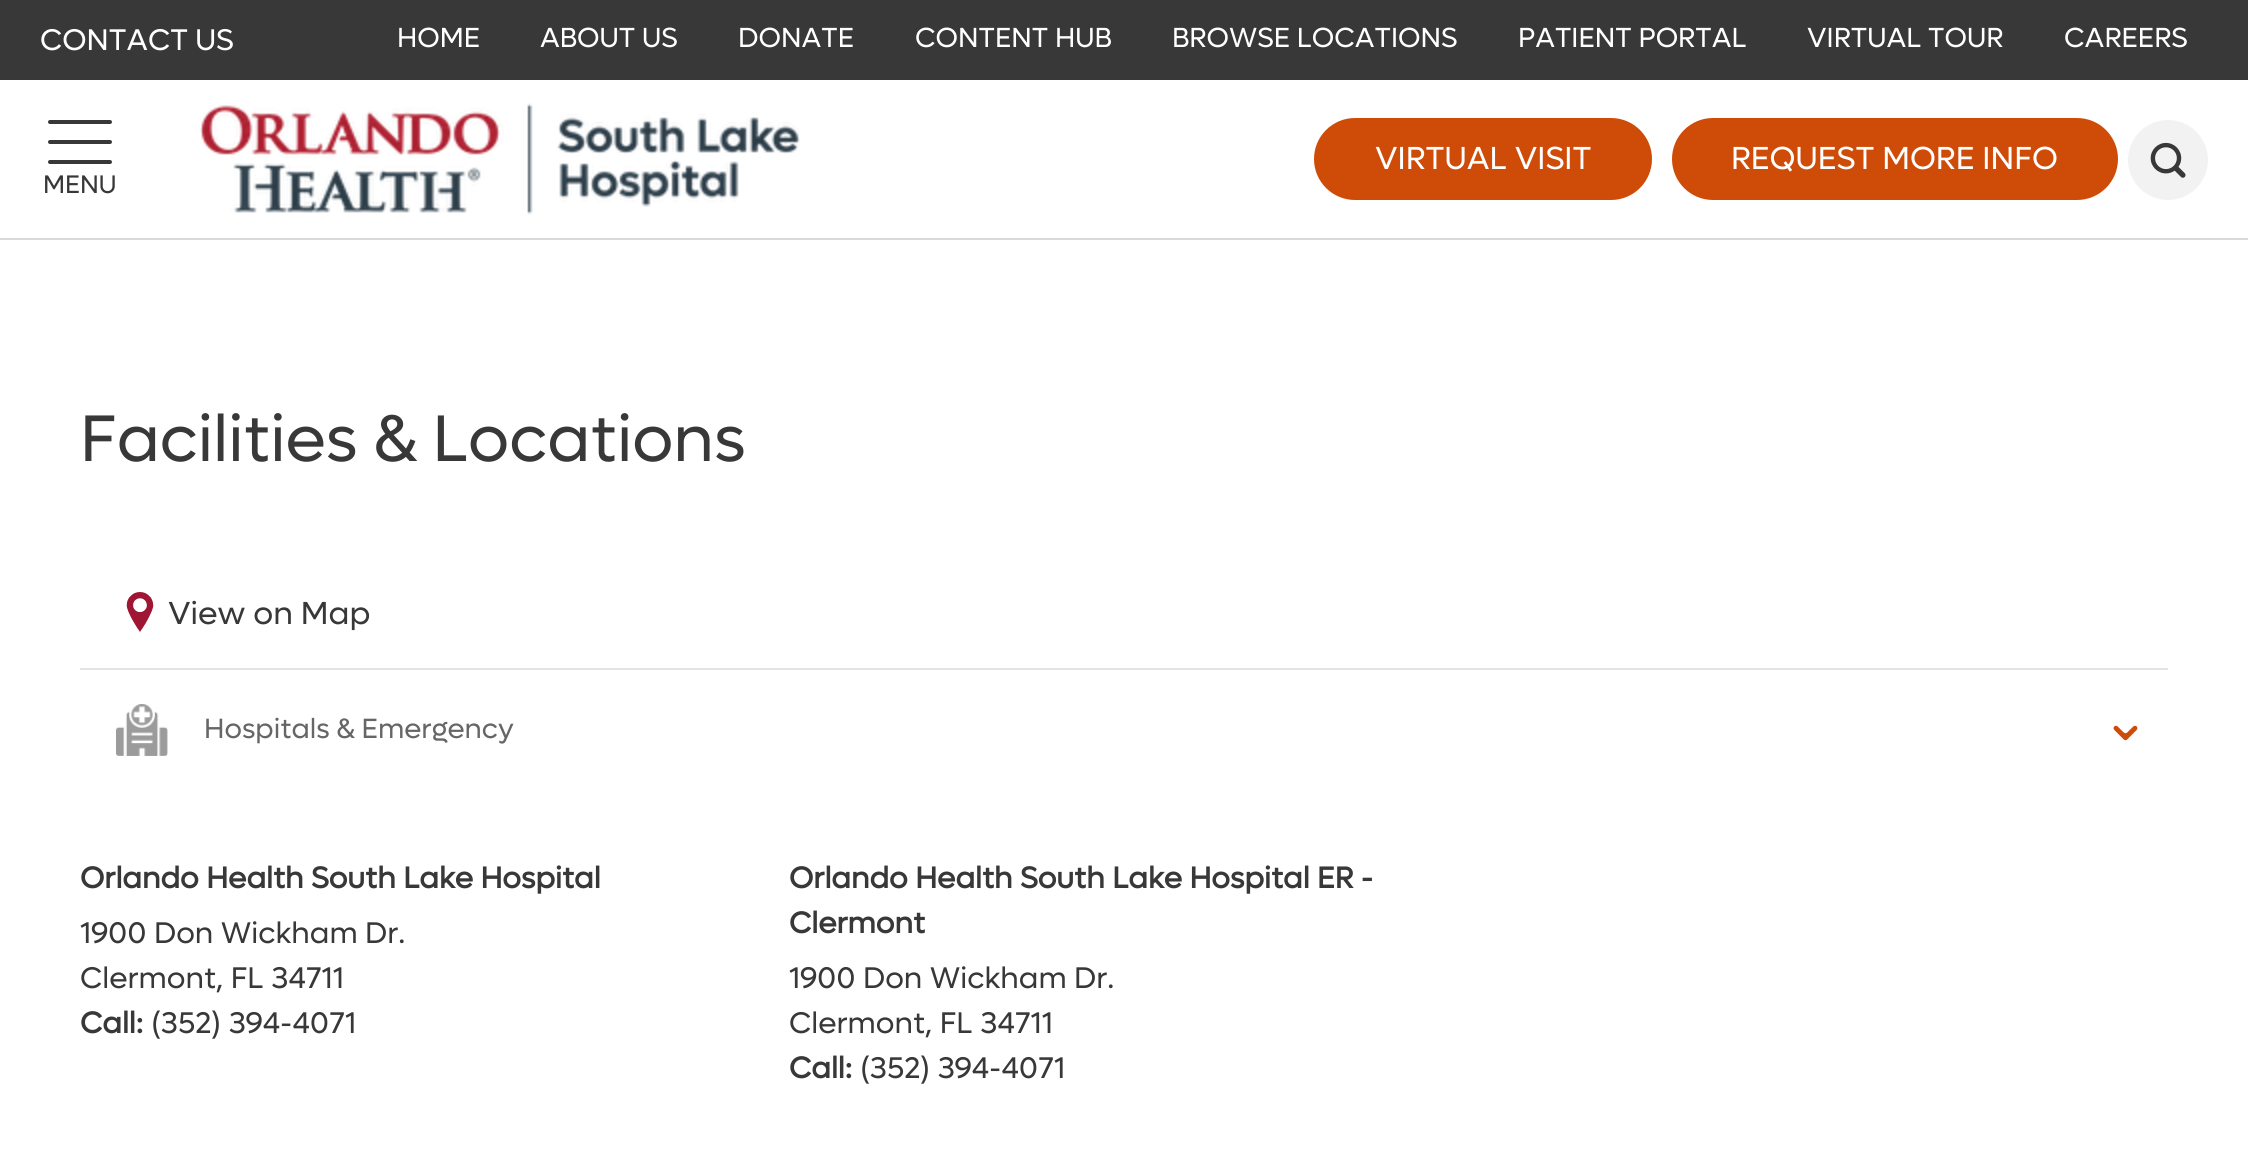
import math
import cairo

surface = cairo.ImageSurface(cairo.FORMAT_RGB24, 2248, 1155)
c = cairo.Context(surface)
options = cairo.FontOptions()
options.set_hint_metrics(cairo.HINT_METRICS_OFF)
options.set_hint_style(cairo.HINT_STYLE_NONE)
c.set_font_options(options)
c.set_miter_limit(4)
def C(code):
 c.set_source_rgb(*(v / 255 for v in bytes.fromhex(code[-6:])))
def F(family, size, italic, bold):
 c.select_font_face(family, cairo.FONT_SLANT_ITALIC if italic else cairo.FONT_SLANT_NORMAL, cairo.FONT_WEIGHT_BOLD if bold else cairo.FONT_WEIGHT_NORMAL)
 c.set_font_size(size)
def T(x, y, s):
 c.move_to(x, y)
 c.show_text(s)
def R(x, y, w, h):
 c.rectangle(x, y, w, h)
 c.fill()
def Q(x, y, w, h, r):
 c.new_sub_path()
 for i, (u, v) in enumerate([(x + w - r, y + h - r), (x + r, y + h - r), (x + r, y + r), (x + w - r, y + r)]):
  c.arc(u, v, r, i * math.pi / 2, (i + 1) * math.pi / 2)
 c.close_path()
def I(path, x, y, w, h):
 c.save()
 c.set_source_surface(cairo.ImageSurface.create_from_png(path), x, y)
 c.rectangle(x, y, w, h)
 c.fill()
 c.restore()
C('ffffff')
c.paint()
C('393839')
R(0,0,2248,80)
F('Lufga',30,0,0)
C('ffffff')
T(40,50,'CONTACT US')
F('Lufga',27.75,0,0)
T(397,47,'HOME')
T(540,47,'ABOUT US')
T(738,47,'DONATE')
T(915,47,'CONTENT HUB')
T(1172,47,'BROWSE LOCATIONS')
T(1518,47,'PATIENT PORTAL')
T(1807,47,'VIRTUAL TOUR')
T(2064,47,'CAREERS')
C('d9d9d9')
R(0,238,2248,2)
I('1.png',200,103,600,112)
C('cf4b08')
Q(1314,118,338,82,41)
c.fill()
F('Lufga',32,0,0)
C('ffffff')
T(1375,169,'VIRTUAL VISIT')
C('cf4b08')
Q(1672,118,446,82,41)
c.fill()
C('ffffff')
T(1731,169,'REQUEST MORE INFO')
C('f2f2f2')
c.new_path()
c.arc(2168,160,40,0,2 * math.pi)
c.fill()
I('2.png',2150,142,36,36)
C('393839')
Q(48,140,64,4,2)
c.fill()
Q(48,120,64,4,2)
c.fill()
Q(48,160,64,4,2)
c.fill()
F('Lufga',25.5,0,0)
T(43,193,'MENU')
F('Lufga',66,0,0)
T(80,461,'Facilities & Locations')
C('e4e4e4')
R(80,668,2088,2)
I('3.png',126,592,28,40)
F('Lufga',32,0,0)
C('393839')
T(168,624,'View on Map')
I('4.png',116,704,52,52)
F('Lufga',28,0,0)
C('666666')
T(204,738,'Hospitals & Emergency')
I('5.png',2113,725,25,16)
F('Lufga',30,0,1)
C('393839')
T(80,888,'Orlando Health South Lake Hospital')
F('Lufga',30,0,0)
T(80,943,'1900 Don Wickham Dr.')
T(80,988,'Clermont, FL 34711')
F('Lufga',30,0,1)
T(80,1033,'Call:')
F('Lufga',30,0,0)
T(151,1033,'(352) 394-4071')
F('Lufga',30,0,1)
T(789,888,'Orlando Health South Lake Hospital ER -')
T(789,933,'Clermont')
F('Lufga',30,0,0)
T(789,988,'1900 Don Wickham Dr.')
T(789,1033,'Clermont, FL 34711')
F('Lufga',30,0,1)
T(789,1078,'Call:')
F('Lufga',30,0,0)
T(860,1078,'(352) 394-4071')
surface.write_to_png('o.png')
